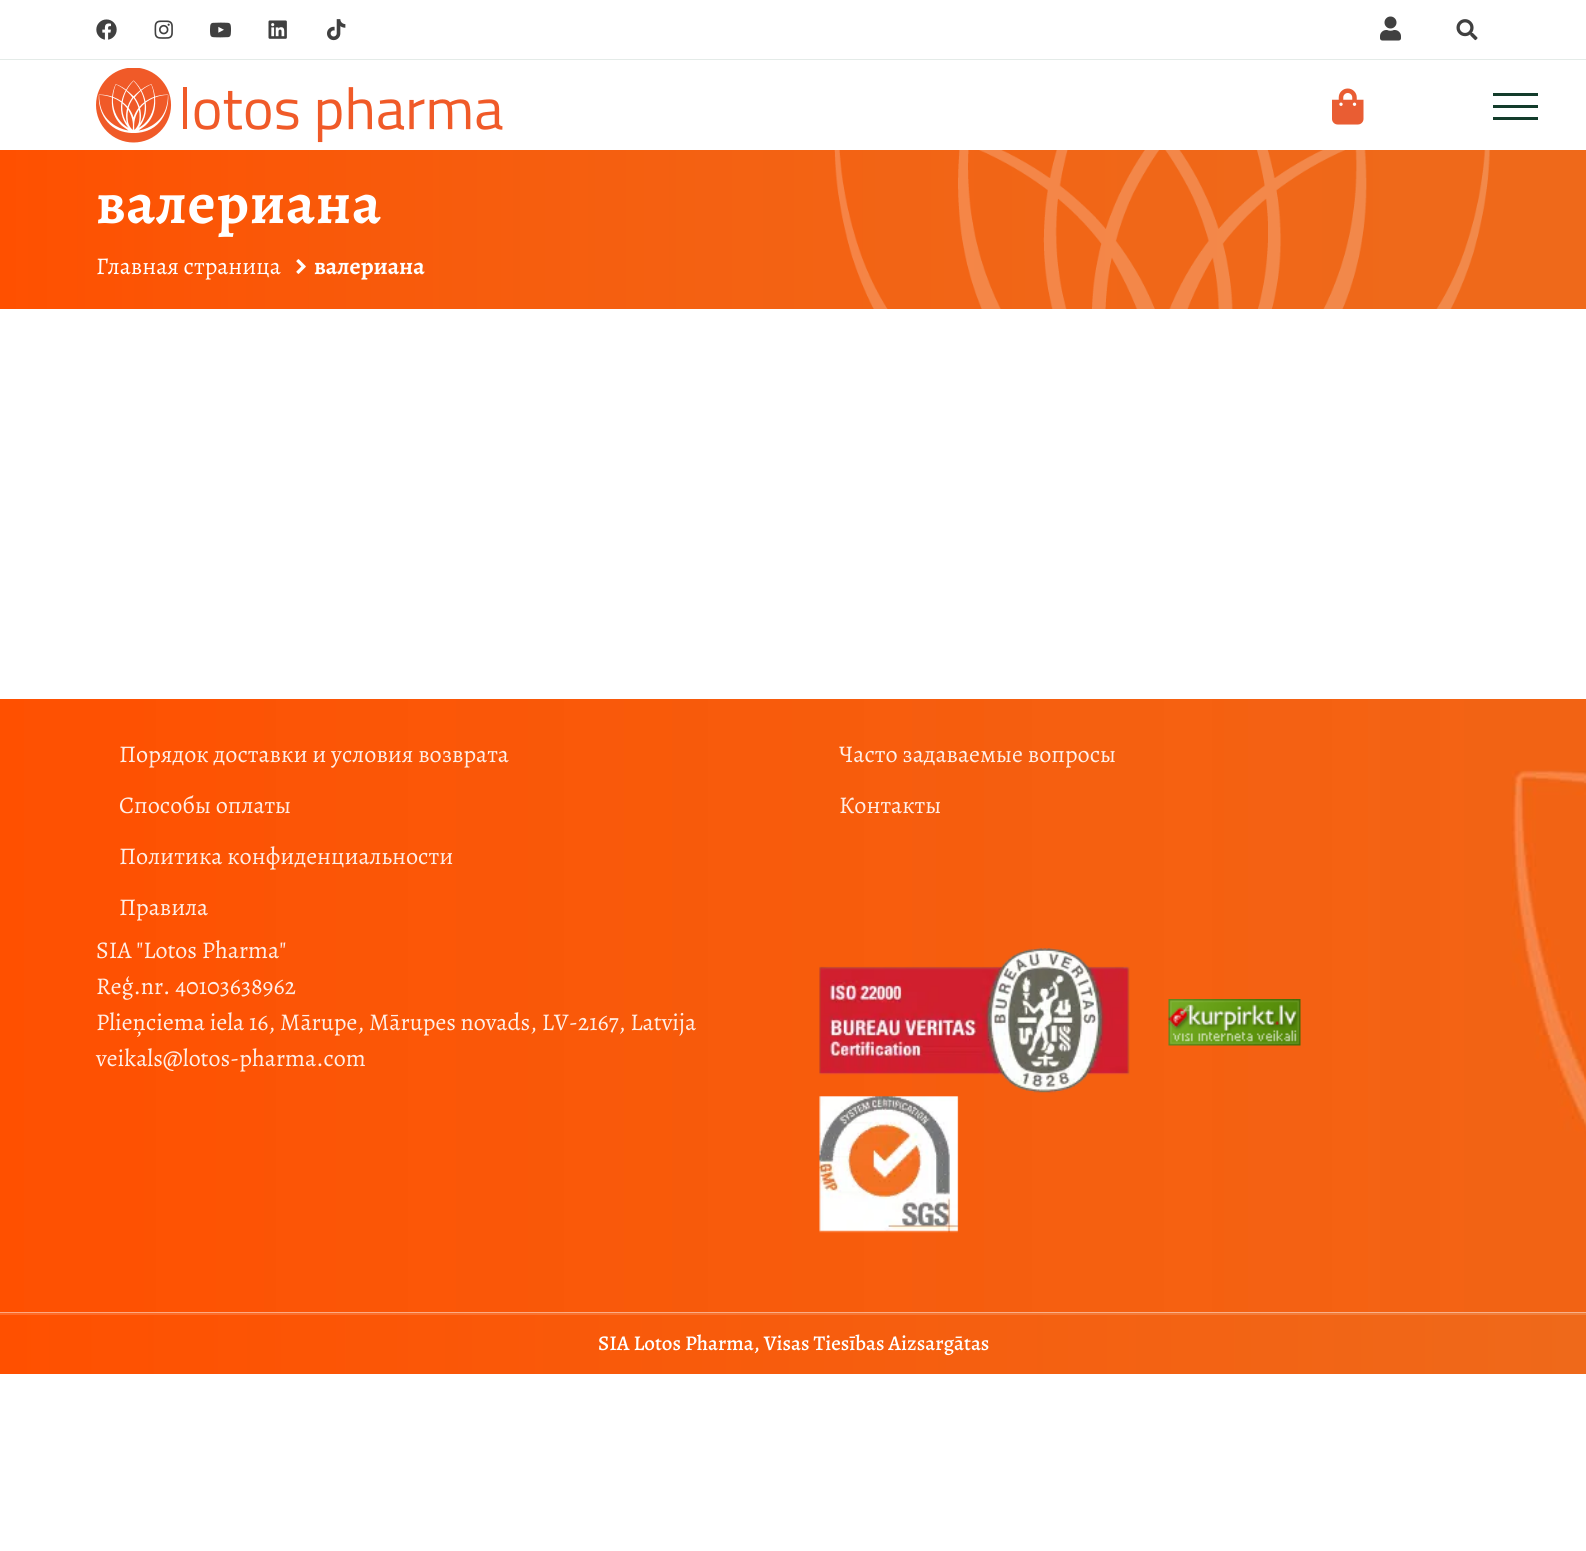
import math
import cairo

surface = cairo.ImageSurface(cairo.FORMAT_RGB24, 1586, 1551)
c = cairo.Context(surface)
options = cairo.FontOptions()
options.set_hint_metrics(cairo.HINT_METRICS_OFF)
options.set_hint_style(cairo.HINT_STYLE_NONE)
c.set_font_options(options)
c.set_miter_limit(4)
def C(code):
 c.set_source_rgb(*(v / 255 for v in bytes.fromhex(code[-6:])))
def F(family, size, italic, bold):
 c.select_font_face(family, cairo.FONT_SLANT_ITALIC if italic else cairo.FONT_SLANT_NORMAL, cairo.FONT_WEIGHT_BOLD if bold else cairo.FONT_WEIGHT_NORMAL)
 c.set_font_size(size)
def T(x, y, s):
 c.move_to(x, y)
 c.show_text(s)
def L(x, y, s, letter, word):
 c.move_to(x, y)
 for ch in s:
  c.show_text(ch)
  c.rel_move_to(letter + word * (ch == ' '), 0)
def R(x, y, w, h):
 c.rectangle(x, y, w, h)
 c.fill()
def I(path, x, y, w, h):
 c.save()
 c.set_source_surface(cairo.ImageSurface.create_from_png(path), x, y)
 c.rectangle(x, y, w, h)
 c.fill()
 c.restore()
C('ffffff')
c.paint()
I('1.png',96,19,21,21)
I('2.png',154,20,19,19)
I('3.png',210,22,21,16)
I('4.png',268,20,19,19)
I('5.png',327,19,19,22)
I('6.png',1380,16,21,25)
I('7.png',1456,19,22,22)
C('e4ebe8')
R(0,59,1586,1)
I('8.png',96,68,407,75)
I('9.png',1332,88,32,37)
C('133c2b')
R(1493,93,45,3)
R(1493,117,45,3)
R(1493,105,45,3)
I('10.png',0,150,1586,159)
F('Alegreya',60,0,1)
C('ffffff')
L(96,223,'валериана',1,0)
F('Alegreya',24,0,0)
T(96,274,'Главная страница')
I('11.png',296,259,10,15)
F('Alegreya',24,0,1)
T(314,274,'валериана')
I('12.png',0,699,1586,614)
F('Alegreya',24,0,0)
C('ffeee6')
T(119,762,'Порядок доставки и условия возврата')
T(119,813,'Способы оплаты')
T(119,864,'Политика конфиденциальности')
T(119,915,'Правила')
T(839,762,'Часто задаваемые вопросы')
T(839,813,'Контакты')
T(96,958,'SIA "Lotos Pharma"')
T(96,994,'Reģ.nr. 40103638962')
T(96,1030,'Plieņciema iela 16, Mārupe, Mārupes novads, LV-2167, Latvija')
T(96,1066,'veikals@lotos-pharma.com')
I('13.png',819,948,311,285)
I('14.png',1168,999,133,47)
gradient = cairo.LinearGradient(0,1343,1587,1343)
gradient.add_color_stop_rgba(0,1,0.314,0,1)
gradient.add_color_stop_rgba(1,0.937,0.412,0.102,1)
c.set_source(gradient)
R(0,1315,1586,59)
gradient = cairo.LinearGradient(0,1343,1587,1343)
gradient.add_color_stop_rgba(0,1,0.416,0.149,1)
gradient.add_color_stop_rgba(1,0.945,0.502,0.235,1)
c.set_source(gradient)
R(0,1313,1586,2)
F('Alegreya Medium',21,0,0)
C('ffffff')
T(598,1350,'SIA Lotos Pharma, Visas Tiesības Aizsargātas')
surface.write_to_png('o.png')
